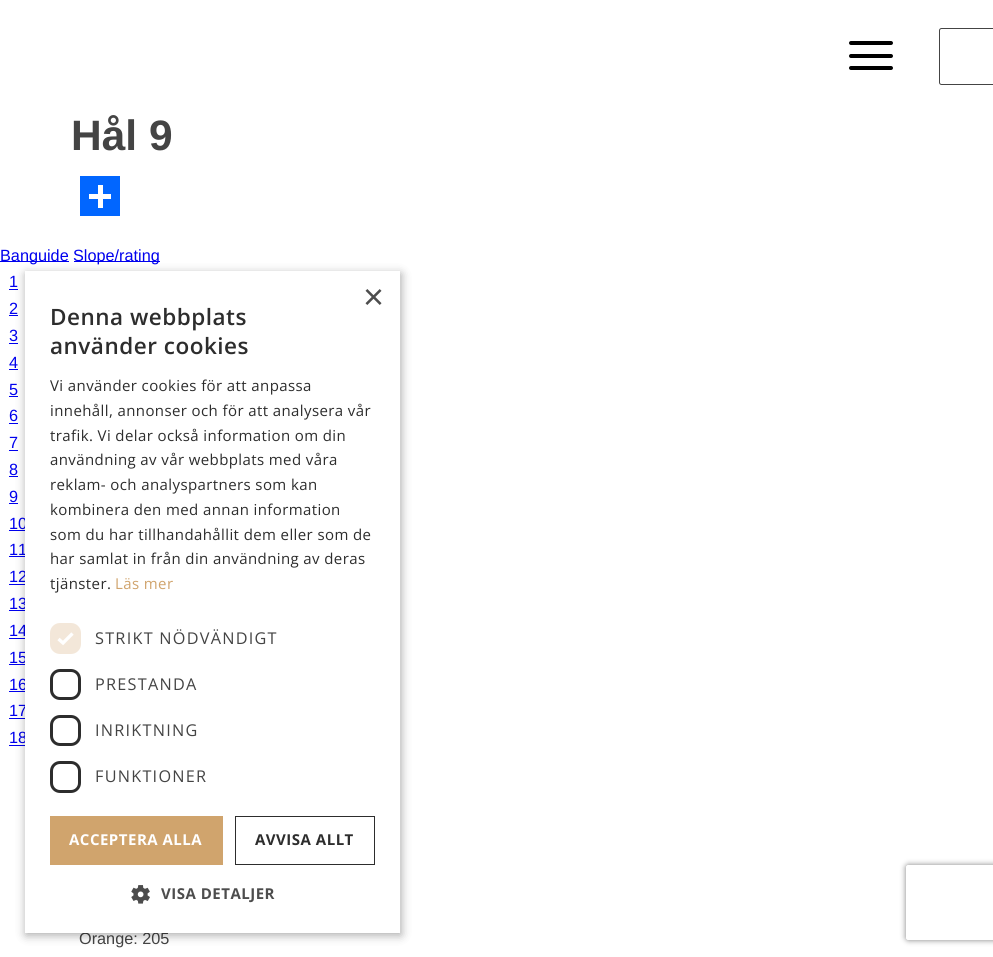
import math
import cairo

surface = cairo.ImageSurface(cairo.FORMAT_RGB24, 993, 957)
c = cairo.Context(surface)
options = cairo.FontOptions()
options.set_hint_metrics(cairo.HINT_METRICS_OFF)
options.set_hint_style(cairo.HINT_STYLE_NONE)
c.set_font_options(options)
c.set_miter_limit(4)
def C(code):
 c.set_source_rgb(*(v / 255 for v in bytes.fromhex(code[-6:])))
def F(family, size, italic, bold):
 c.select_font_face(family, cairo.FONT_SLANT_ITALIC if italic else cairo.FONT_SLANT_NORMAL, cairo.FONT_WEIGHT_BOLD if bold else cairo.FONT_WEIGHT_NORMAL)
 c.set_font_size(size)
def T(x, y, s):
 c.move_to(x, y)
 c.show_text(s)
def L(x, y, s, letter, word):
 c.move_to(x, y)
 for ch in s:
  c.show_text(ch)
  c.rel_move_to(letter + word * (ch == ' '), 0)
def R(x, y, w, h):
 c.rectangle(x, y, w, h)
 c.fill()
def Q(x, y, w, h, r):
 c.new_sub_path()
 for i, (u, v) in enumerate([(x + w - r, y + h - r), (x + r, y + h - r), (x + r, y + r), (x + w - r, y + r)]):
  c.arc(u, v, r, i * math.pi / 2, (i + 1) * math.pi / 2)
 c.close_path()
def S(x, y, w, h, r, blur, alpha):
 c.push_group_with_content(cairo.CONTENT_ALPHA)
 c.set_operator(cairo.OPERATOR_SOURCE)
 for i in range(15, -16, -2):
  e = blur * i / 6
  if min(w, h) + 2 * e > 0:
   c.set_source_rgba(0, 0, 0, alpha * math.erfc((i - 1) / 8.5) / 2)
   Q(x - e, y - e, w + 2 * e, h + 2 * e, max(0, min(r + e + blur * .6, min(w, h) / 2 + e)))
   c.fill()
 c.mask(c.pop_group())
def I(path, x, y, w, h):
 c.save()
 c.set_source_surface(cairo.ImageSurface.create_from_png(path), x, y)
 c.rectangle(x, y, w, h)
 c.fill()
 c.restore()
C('ffffff')
c.paint()
C('000000')
Q(849,54,44,4,2)
c.fill()
Q(849,41,44,4,2)
c.fill()
Q(849,66,44,4,2)
c.fill()
Q(939.5,28.5,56,56,2)
C('444444')
c.set_line_width(1)
c.stroke()
F('Liberation Sans',42.5,0,1)
T(71,150,'Hål 9')
C('0166ff')
R(80,176,40,40)
C('ffffff')
R(98,185,5,23)
R(89,194,22,5)
C('0000ee')
R(0,261,69,1)
F('Liberation Sans',16.25,0,0)
T(0,261,'Banguide')
R(74,261,86,1)
T(73,261,'Slope/rating')
T(9,287,'1')
R(9,289,9,1)
T(9,314,'2')
R(9,315,9,1)
T(9,341,'3')
R(9,343,9,1)
T(9,368,'4')
R(9,369,9,1)
T(9,395,'5')
R(9,396,9,1)
T(9,421,'6')
R(9,423,9,1)
T(9,448,'7')
R(9,450,9,1)
T(9,475,'8')
R(9,476,9,1)
T(9,502,'9')
R(9,503,9,1)
T(9,529,'10')
R(9,530,17,1)
T(9,555,'11')
R(9,556,17,1)
T(9,582,'12')
R(9,584,17,1)
T(9,609,'13')
R(9,610,17,1)
T(9,636,'14')
R(9,638,17,1)
T(9,663,'15')
R(9,664,17,1)
T(9,690,'16')
R(9,691,17,1)
T(9,716,'17')
R(9,718,17,1)
T(9,743,'18')
R(9,745,17,1)
C('444444')
T(79,944,'Orange: 205')
C('000000')
S(26,274,375,661,0,5,.35)
C('ffffff')
R(25,271,375,662)
F('Liberation Sans',36,0,0)
C('4d4d4d')
T(363,309,'×')
F('Open Sans SemiBold',22.5,0,0)
C('2d2d2d')
L(50,325,'Denna webbplats',.5,0)
L(50,354,'använder cookies',.5,0)
F('Open Sans',15,0,0)
L(50,391,'Vi använder cookies för att anpassa',.4,0)
L(50,416,'innehåll, annonser och för att analysera vår',.4,0)
L(50,441,'trafik. Vi delar också information om din',.4,0)
L(50,465,'användning av vår webbplats med våra',.4,0)
L(50,490,'reklam- och analyspartners som kan',.4,0)
L(50,515,'kombinera den med annan information',.4,0)
L(50,540,'som du har tillhandahållit dem eller som de',.4,0)
L(50,564,'har samlat in från din användning av deras',.4,0)
L(50,589,'tjänster.',.4,0)
C('d0a46d')
L(115,589,'Läs mer',.4,0)
C('f3e7d9')
Q(50,623,31,31,10)
c.fill()
c.new_path()
c.move_to(58.5,639)
c.line_to(63,643)
c.line_to(72.5,633.5)
C('ffffff')
c.set_line_width(3.3)
c.stroke()
F('Open Sans',16.25,0,0)
C('444444')
L(95,644,'STRIKT NÖDVÄNDIGT',1.25,0)
Q(51.5,670.5,28,28,8.5)
C('2d2d2d')
c.set_line_width(3)
c.stroke()
C('444444')
L(95,690,'PRESTANDA',1.25,0)
Q(51.5,716.5,28,28,8.5)
C('2d2d2d')
c.stroke()
C('444444')
L(95,736,'INRIKTNING',1.25,0)
Q(51.5,762.5,28,29,8.5)
C('2d2d2d')
c.stroke()
C('444444')
L(95,782,'FUNKTIONER',1.25,0)
C('d0a46d')
R(50,816,173,49)
F('Open Sans',15,0,1)
C('ffffff')
L(69,845,'ACCEPTERA ALLA',.5,0)
c.rectangle(235.5,816.5,139,48)
C('2d2d2d')
c.set_line_width(1)
c.stroke()
L(255,845,'AVVISA ALLT',.5,0)
I('1.png',131,885,19,19)
C('4d4d4d')
L(161,899,'VISA DETALJER',.5,0)
c.save()
c.set_fill_rule(cairo.FILL_RULE_EVEN_ODD)
c.new_path()
c.move_to(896,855)
c.line_to(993,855)
c.line_to(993,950)
c.line_to(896,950)
c.close_path()
c.move_to(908.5,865)
c.line_to(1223.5,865)
c.curve_to(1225,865,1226,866,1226,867.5)
c.line_to(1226,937.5)
c.curve_to(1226,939,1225,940,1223.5,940)
c.line_to(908.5,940)
c.curve_to(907,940,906,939,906,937.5)
c.line_to(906,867.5)
c.curve_to(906,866,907,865,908.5,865)
c.close_path()
c.clip()
C('808080')
S(906,865,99,75,2.5,3,1)
c.restore()
surface.write_to_png('o.png')
